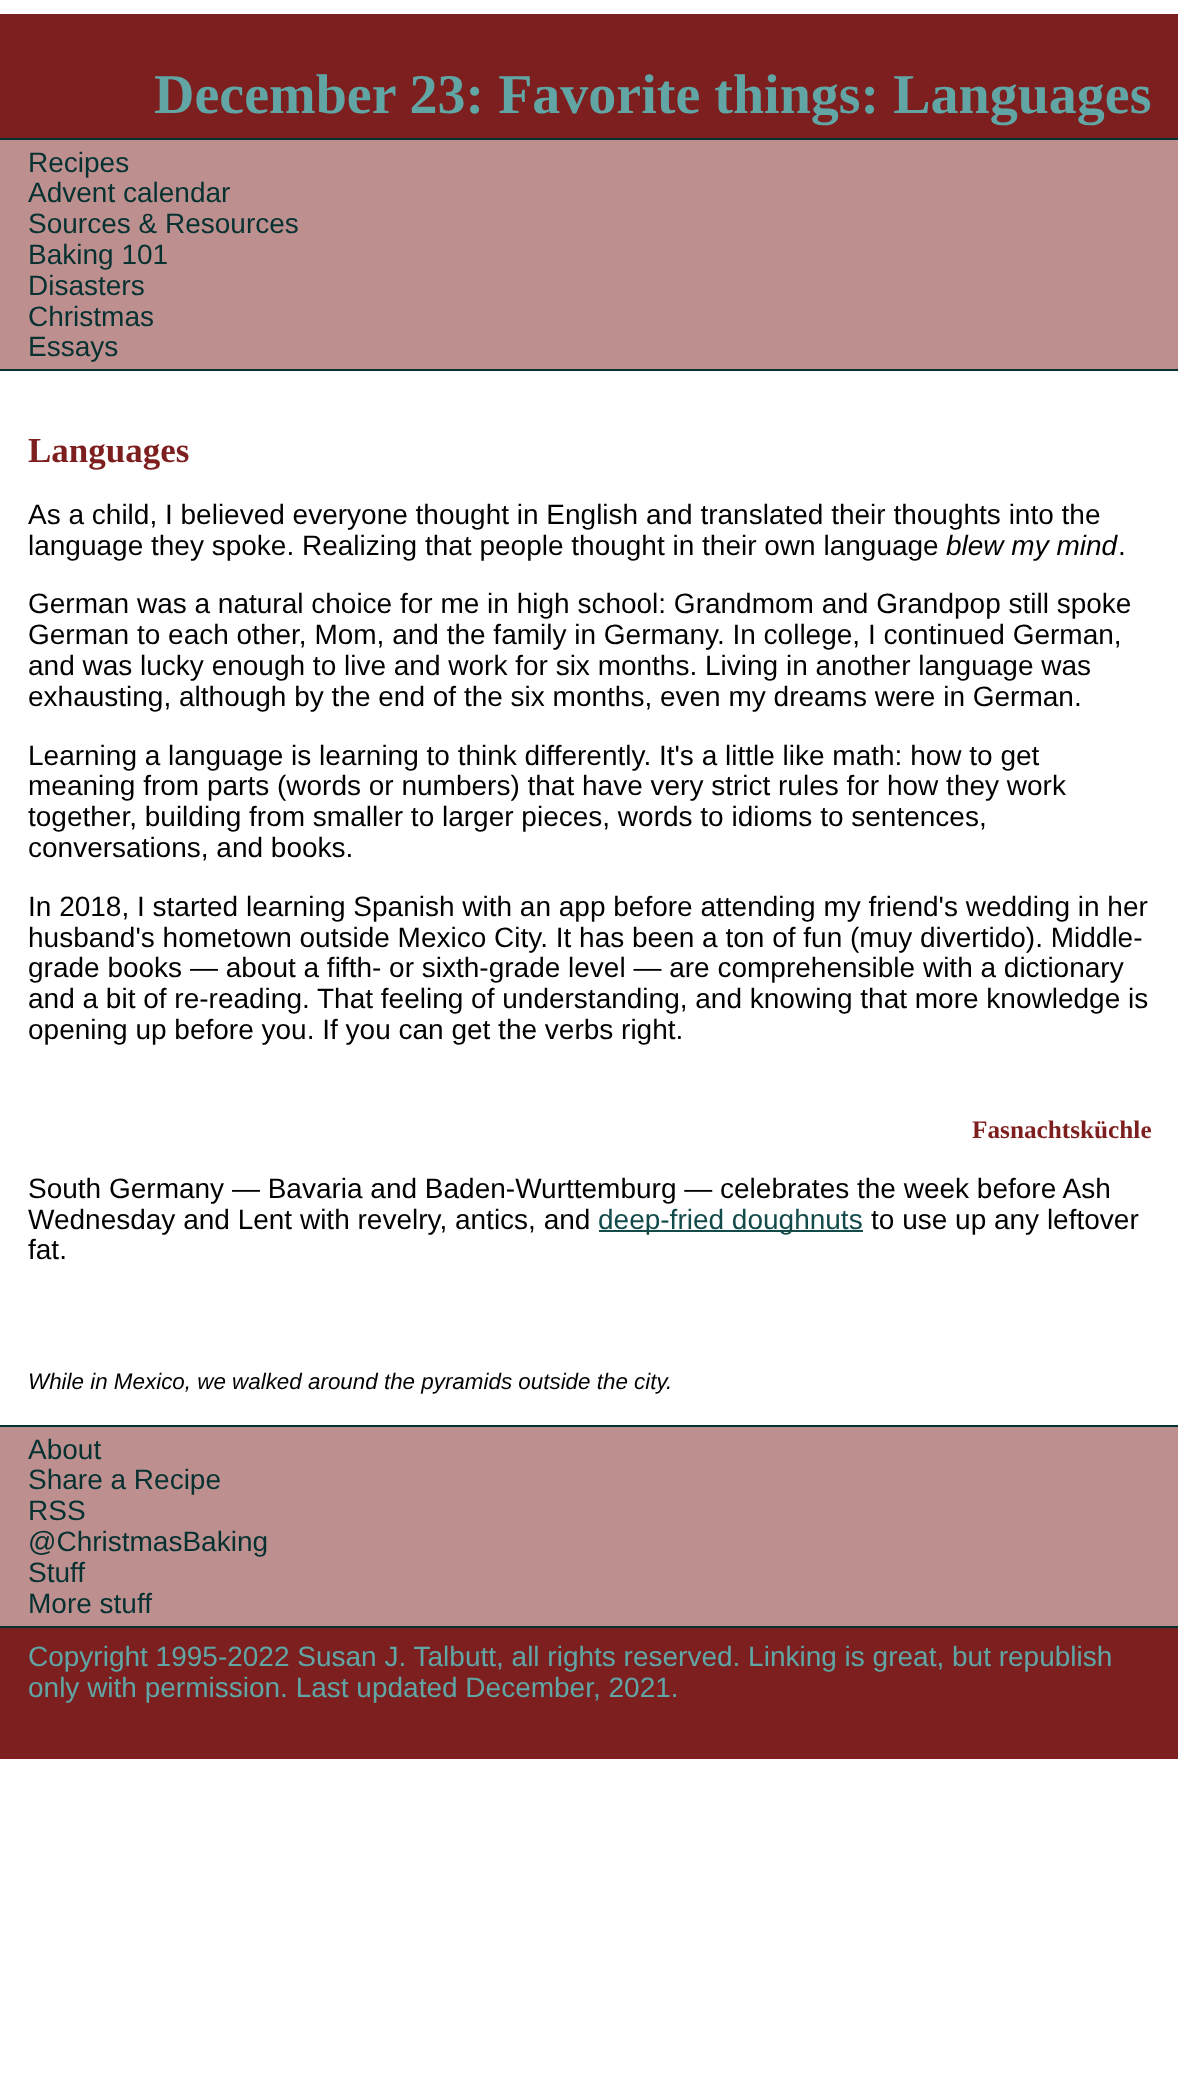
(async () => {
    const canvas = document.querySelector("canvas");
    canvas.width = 1178;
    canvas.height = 2089;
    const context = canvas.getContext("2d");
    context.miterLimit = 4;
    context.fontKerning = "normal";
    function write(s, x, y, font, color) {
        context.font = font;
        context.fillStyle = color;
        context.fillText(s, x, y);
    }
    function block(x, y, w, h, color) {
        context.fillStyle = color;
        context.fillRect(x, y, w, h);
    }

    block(0, 0, 1178, 2089, "rgb(255, 255, 255)");
    block(0, 14, 1178, 124, "rgb(125, 31, 31)");
    write("December 23: Favorite things: Languages", 154, 113, "bold 56px Liberation Serif", "rgb(97, 165, 165)");
    block(0, 140, 1178, 229, "rgb(190, 143, 143)");
    block(0, 138, 1178, 2, "rgb(6, 49, 49)");
    block(0, 369, 1178, 2, "rgb(6, 49, 49)");
    write("Recipes", 28, 172, "28px Liberation Sans", "rgb(6, 49, 49)");
    write("Advent calendar", 28, 202, "28px Liberation Sans", "rgb(6, 49, 49)");
    write("Sources & Resources", 28, 233, "28px Liberation Sans", "rgb(6, 49, 49)");
    write("Baking 101", 28, 264, "28px Liberation Sans", "rgb(6, 49, 49)");
    write("Disasters", 28, 295, "28px Liberation Sans", "rgb(6, 49, 49)");
    write("Christmas", 28, 326, "28px Liberation Sans", "rgb(6, 49, 49)");
    write("Essays", 28, 356, "28px Liberation Sans", "rgb(6, 49, 49)");
    write("Languages", 28, 462, "bold 35px Liberation Serif", "rgb(125, 31, 31)");
    write("As a child, I believed everyone thought in English and translated their thoughts into the", 28, 524, "28px Liberation Sans", "rgb(0, 0, 0)");
    write("language they spoke. Realizing that people thought in their own language", 28, 555, "28px Liberation Sans", "rgb(0, 0, 0)");
    write("blew my mind", 946, 555, "italic 28px Liberation Sans", "rgb(0, 0, 0)");
    write(".", 1118, 555, "28px Liberation Sans", "rgb(0, 0, 0)");
    write("German was a natural choice for me in high school: Grandmom and Grandpop still spoke", 28, 613, "28px Liberation Sans", "rgb(0, 0, 0)");
    write("German to each other, Mom, and the family in Germany. In college, I continued German,", 28, 644, "28px Liberation Sans", "rgb(0, 0, 0)");
    write("and was lucky enough to live and work for six months. Living in another language was", 28, 675, "28px Liberation Sans", "rgb(0, 0, 0)");
    write("exhausting, although by the end of the six months, even my dreams were in German.", 28, 706, "28px Liberation Sans", "rgb(0, 0, 0)");
    write("Learning a language is learning to think differently. It's a little like math: how to get", 28, 765, "28px Liberation Sans", "rgb(0, 0, 0)");
    write("meaning from parts (words or numbers) that have very strict rules for how they work", 28, 795, "28px Liberation Sans", "rgb(0, 0, 0)");
    write("together, building from smaller to larger pieces, words to idioms to sentences,", 28, 826, "28px Liberation Sans", "rgb(0, 0, 0)");
    write("conversations, and books.", 28, 857, "28px Liberation Sans", "rgb(0, 0, 0)");
    write("In 2018, I started learning Spanish with an app before attending my friend's wedding in her", 28, 916, "28px Liberation Sans", "rgb(0, 0, 0)");
    write("husband's hometown outside Mexico City. It has been a ton of fun (muy divertido). Middle-", 28, 947, "28px Liberation Sans", "rgb(0, 0, 0)");
    write("grade books — about a fifth- or sixth-grade level — are comprehensible with a dictionary", 28, 977, "28px Liberation Sans", "rgb(0, 0, 0)");
    write("and a bit of re-reading. That feeling of understanding, and knowing that more knowledge is", 28, 1008, "28px Liberation Sans", "rgb(0, 0, 0)");
    write("opening up before you. If you can get the verbs right.", 28, 1039, "28px Liberation Sans", "rgb(0, 0, 0)");
    write("Fasnachtsküchle", 972, 1138, "bold 25.25px Liberation Serif", "rgb(125, 31, 31)");
    write("South Germany — Bavaria and Baden-Wurttemburg — celebrates the week before Ash", 28, 1198, "28px Liberation Sans", "rgb(0, 0, 0)");
    write("Wednesday and Lent with revelry, antics, and", 28, 1229, "28px Liberation Sans", "rgb(0, 0, 0)");
    block(599, 1230, 264, 2, "rgb(19, 75, 75)");
    write("deep-fried doughnuts", 598, 1229, "28px Liberation Sans", "rgb(19, 75, 75)");
    write("to use up any leftover", 871, 1229, "28px Liberation Sans", "rgb(0, 0, 0)");
    write("fat.", 28, 1259, "28px Liberation Sans", "rgb(0, 0, 0)");
    write("While in Mexico, we walked around the pyramids outside the city.", 28, 1389, "italic 22.4px Liberation Sans", "rgb(0, 0, 0)");
    block(0, 1628, 1178, 131, "rgb(125, 31, 31)");
    block(0, 1427, 1178, 199, "rgb(190, 143, 143)");
    block(0, 1425, 1178, 2, "rgb(6, 49, 49)");
    block(0, 1626, 1178, 2, "rgb(6, 49, 49)");
    write("About", 28, 1459, "28px Liberation Sans", "rgb(6, 49, 49)");
    write("Share a Recipe", 28, 1489, "28px Liberation Sans", "rgb(6, 49, 49)");
    write("RSS", 28, 1520, "28px Liberation Sans", "rgb(6, 49, 49)");
    write("@ChristmasBaking", 28, 1551, "28px Liberation Sans", "rgb(6, 49, 49)");
    write("Stuff", 28, 1582, "28px Liberation Sans", "rgb(6, 49, 49)");
    write("More stuff", 28, 1613, "28px Liberation Sans", "rgb(6, 49, 49)");
    write("Copyright 1995-2022 Susan J. Talbutt, all rights reserved. Linking is great, but republish", 28, 1666, "28px Liberation Sans", "rgb(97, 165, 165)");
    write("only with permission. Last updated December, 2021.", 28, 1697, "28px Liberation Sans", "rgb(97, 165, 165)");
})();
